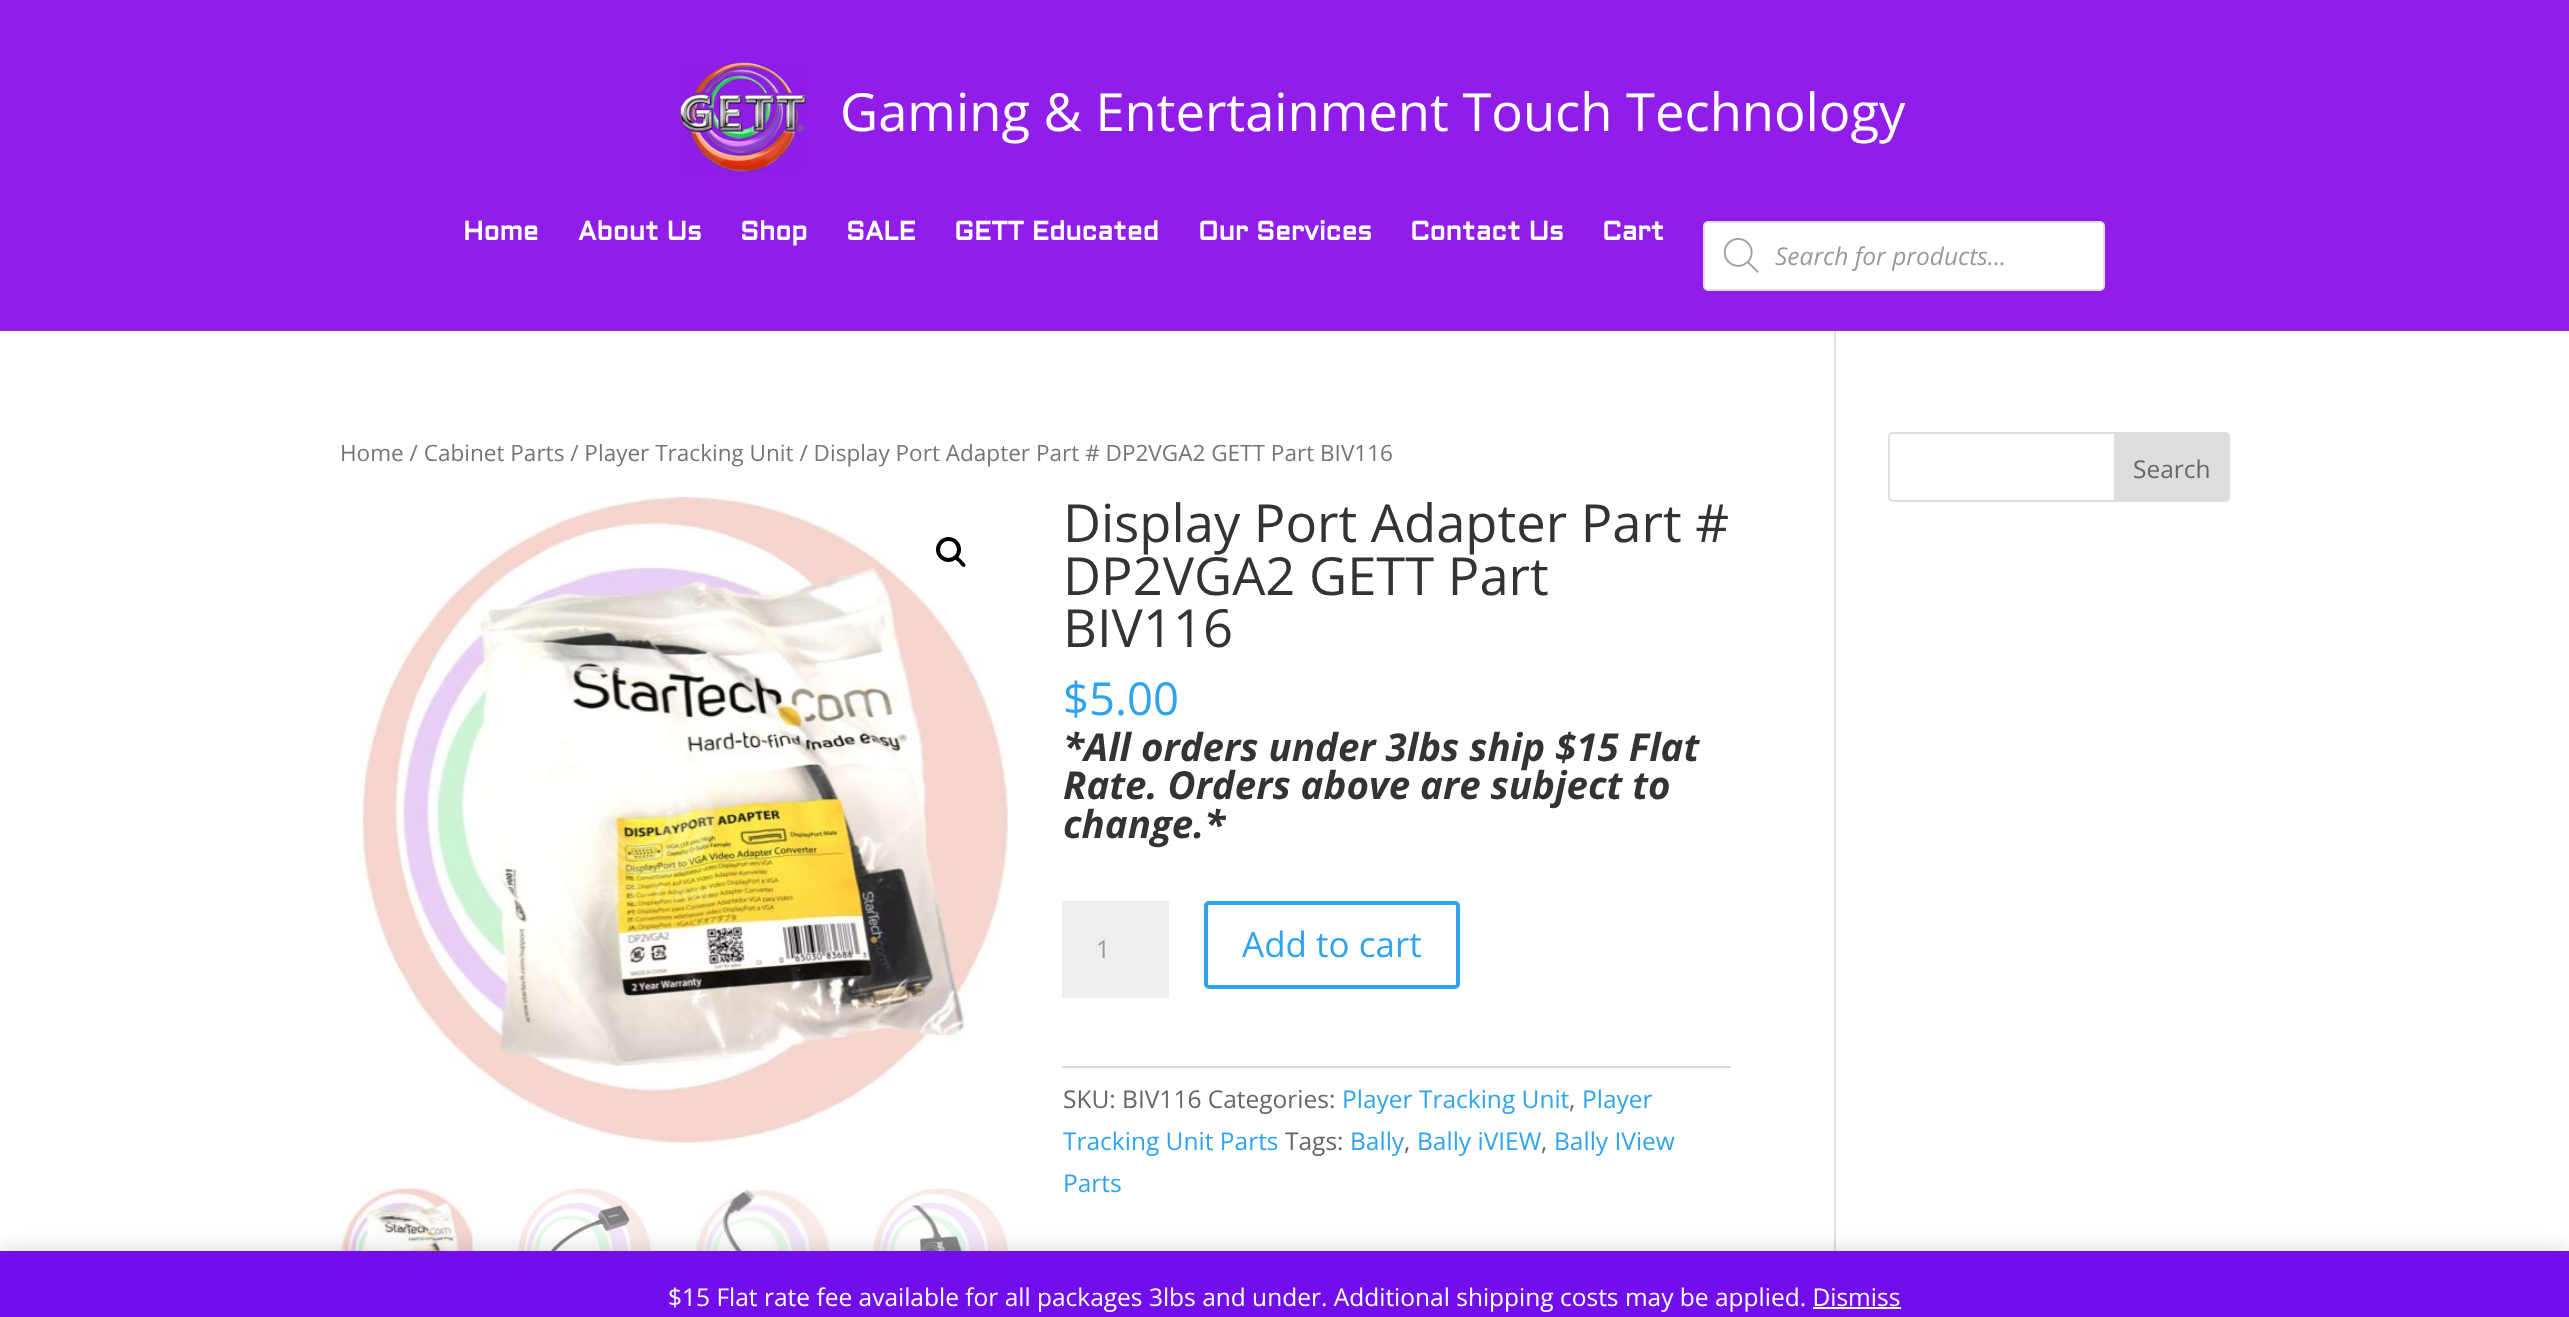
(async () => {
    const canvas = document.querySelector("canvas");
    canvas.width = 2569;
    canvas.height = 1317;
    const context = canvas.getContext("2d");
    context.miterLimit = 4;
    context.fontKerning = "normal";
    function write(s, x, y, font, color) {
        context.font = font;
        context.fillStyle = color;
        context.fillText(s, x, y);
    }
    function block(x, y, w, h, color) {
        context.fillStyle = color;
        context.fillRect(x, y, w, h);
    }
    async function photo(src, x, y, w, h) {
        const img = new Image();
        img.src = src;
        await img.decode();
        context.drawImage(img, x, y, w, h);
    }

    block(0, 0, 2569, 1317, "rgb(255, 255, 255)");
    block(0, 0, 2569, 331, "rgb(144, 30, 232)");
    await photo("media/1.png", 679, 62, 127, 110);
    write("Gaming & Entertainment Touch Technology", 840, 131, "52.5px Open Sans", "rgb(255, 255, 255)");
    write("Home", 463, 240, "bold 26.25px Aldrich", "rgb(255, 255, 255)");
    write("About Us", 578, 240, "bold 26.25px Aldrich", "rgb(255, 255, 255)");
    write("Shop", 740, 240, "bold 26.25px Aldrich", "rgb(255, 255, 255)");
    write("SALE", 846, 240, "bold 26.25px Aldrich", "rgb(255, 255, 255)");
    write("GETT Educated", 954, 240, "bold 26.25px Aldrich", "rgb(255, 255, 255)");
    write("Our Services", 1198, 240, "bold 26.25px Aldrich", "rgb(255, 255, 255)");
    write("Contact Us", 1410, 240, "bold 26.25px Aldrich", "rgb(255, 255, 255)");
    write("Cart", 1602, 240, "bold 26.25px Aldrich", "rgb(255, 255, 255)");
    context.beginPath();
    context.roundRect(1704, 222, 400, 68, 4);
    context.fill();
    context.strokeStyle = "rgb(221, 221, 221)";
    context.lineWidth = 2;
    context.stroke();
    await photo("media/2.png", 1724, 238, 35, 35);
    write("Search for products...", 1775, 265, "italic 24.5px Open Sans", "rgb(153, 153, 153)");
    block(1834, 331, 2, 920, "rgb(226, 226, 226)");
    write("Home / Cabinet Parts / Player Tracking Unit / Display Port Adapter Part # DP2VGA2 GETT Part BIV116", 340, 461, "22.55px Open Sans", "rgb(118, 118, 118)");
    await photo("media/4.png", 1007, 812, 1, 41);
    await photo("media/3.png", 357, 497, 651, 646);
    context.beginPath();
    context.arc(948.5, 549.5, 10.5, 0, Math.PI * 2);
    context.strokeStyle = "rgb(0, 0, 0)";
    context.lineWidth = 4;
    context.stroke();
    context.fillStyle = "rgb(0, 0, 0)";
    context.beginPath();
    context.moveTo(955, 556.5);
    context.bezierCurveTo(957, 554.5, 960.5, 559, 961.5, 560);
    context.bezierCurveTo(962.5, 561.5, 967, 564.5, 965, 566.5);
    context.bezierCurveTo(963, 568.5, 960, 564, 959, 562.5);
    context.bezierCurveTo(958, 561.5, 953, 558.5, 955, 556.5);
    context.closePath();
    context.fill();
    await photo("media/5.png", 340, 1188, 133, 63);
    await photo("media/6.png", 518, 1188, 133, 63);
    await photo("media/7.png", 696, 1188, 134, 63);
    await photo("media/8.png", 873, 1188, 135, 63);
    write("Display Port Adapter Part #", 1063, 542, "52.5px Open Sans", "rgb(51, 51, 51)");
    write("DP2VGA2 GETT Part", 1063, 595, "52.5px Open Sans", "rgb(51, 51, 51)");
    write("BIV116", 1063, 647, "52.5px Open Sans", "rgb(51, 51, 51)");
    write("$5.00", 1063, 715, "45.5px Open Sans", "rgb(46, 163, 242)");
    write("*All orders under 3lbs ship $15 Flat", 1063, 761, "italic bold 38.5px Open Sans", "rgb(51, 51, 51)");
    write("Rate. Orders above are subject to", 1063, 799, "italic bold 38.5px Open Sans", "rgb(51, 51, 51)");
    write("change.*", 1063, 838, "italic bold 38.5px Open Sans", "rgb(51, 51, 51)");
    block(1062, 901, 107, 97, "rgb(238, 238, 238)");
    write("1", 1096, 958, "24.5px Open Sans", "rgb(153, 153, 153)");
    context.beginPath();
    context.roundRect(1206, 903, 252, 84, 3);
    context.strokeStyle = "rgb(46, 163, 242)";
    context.stroke();
    write("Add to cart", 1242, 957, "35px Open Sans", "rgb(46, 163, 242)");
    block(1062, 1066, 669, 2, "rgb(218, 218, 218)");
    write("SKU: BIV116 Categories:", 1063, 1108, "24.5px Open Sans", "rgb(102, 102, 102)");
    write("Player Tracking Unit", 1342, 1108, "24.5px Open Sans", "rgb(46, 163, 242)");
    write(",", 1569, 1108, "24.5px Open Sans", "rgb(102, 102, 102)");
    write("Player", 1582, 1108, "24.5px Open Sans", "rgb(46, 163, 242)");
    write("Tracking Unit Parts", 1063, 1150, "24.5px Open Sans", "rgb(46, 163, 242)");
    write("Tags:", 1285, 1150, "24.5px Open Sans", "rgb(102, 102, 102)");
    write("Bally", 1350, 1150, "24.5px Open Sans", "rgb(46, 163, 242)");
    write(",", 1404, 1150, "24.5px Open Sans", "rgb(102, 102, 102)");
    write("Bally iVIEW", 1417, 1150, "24.5px Open Sans", "rgb(46, 163, 242)");
    write(",", 1541, 1150, "24.5px Open Sans", "rgb(102, 102, 102)");
    write("Bally IView", 1554, 1150, "24.5px Open Sans", "rgb(46, 163, 242)");
    write("Parts", 1063, 1192, "24.5px Open Sans", "rgb(46, 163, 242)");
    context.beginPath();
    context.roundRect(1889, 433, 340, 68, 4);
    context.strokeStyle = "rgb(221, 221, 221)";
    context.lineWidth = 2;
    context.stroke();
    context.fillStyle = "rgb(221, 221, 221)";
    context.beginPath();
    context.roundRect(2115, 433, 114, 68, [0, 4, 4, 0]);
    context.fill();
    context.stroke();
    write("Search", 2133, 478, "24.5px Open Sans", "rgb(102, 102, 102)");
    context.fillStyle = "rgba(0, 0, 0, 0.2)";
    context.filter = "blur(12px)";
    context.beginPath();
    context.rect(0, 1253, 2569, 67);
    context.fill();
    context.filter = "none";
    block(0, 1251, 2569, 66, "rgb(114, 14, 236)");
    write("$15 Flat rate fee available for all packages 3lbs and under. Additional shipping costs may be applied. Dismiss", 668, 1306, "24.5px Open Sans", "rgb(255, 255, 255)");
    block(1813, 1307, 88, 2, "rgb(252, 251, 254)");
})();
